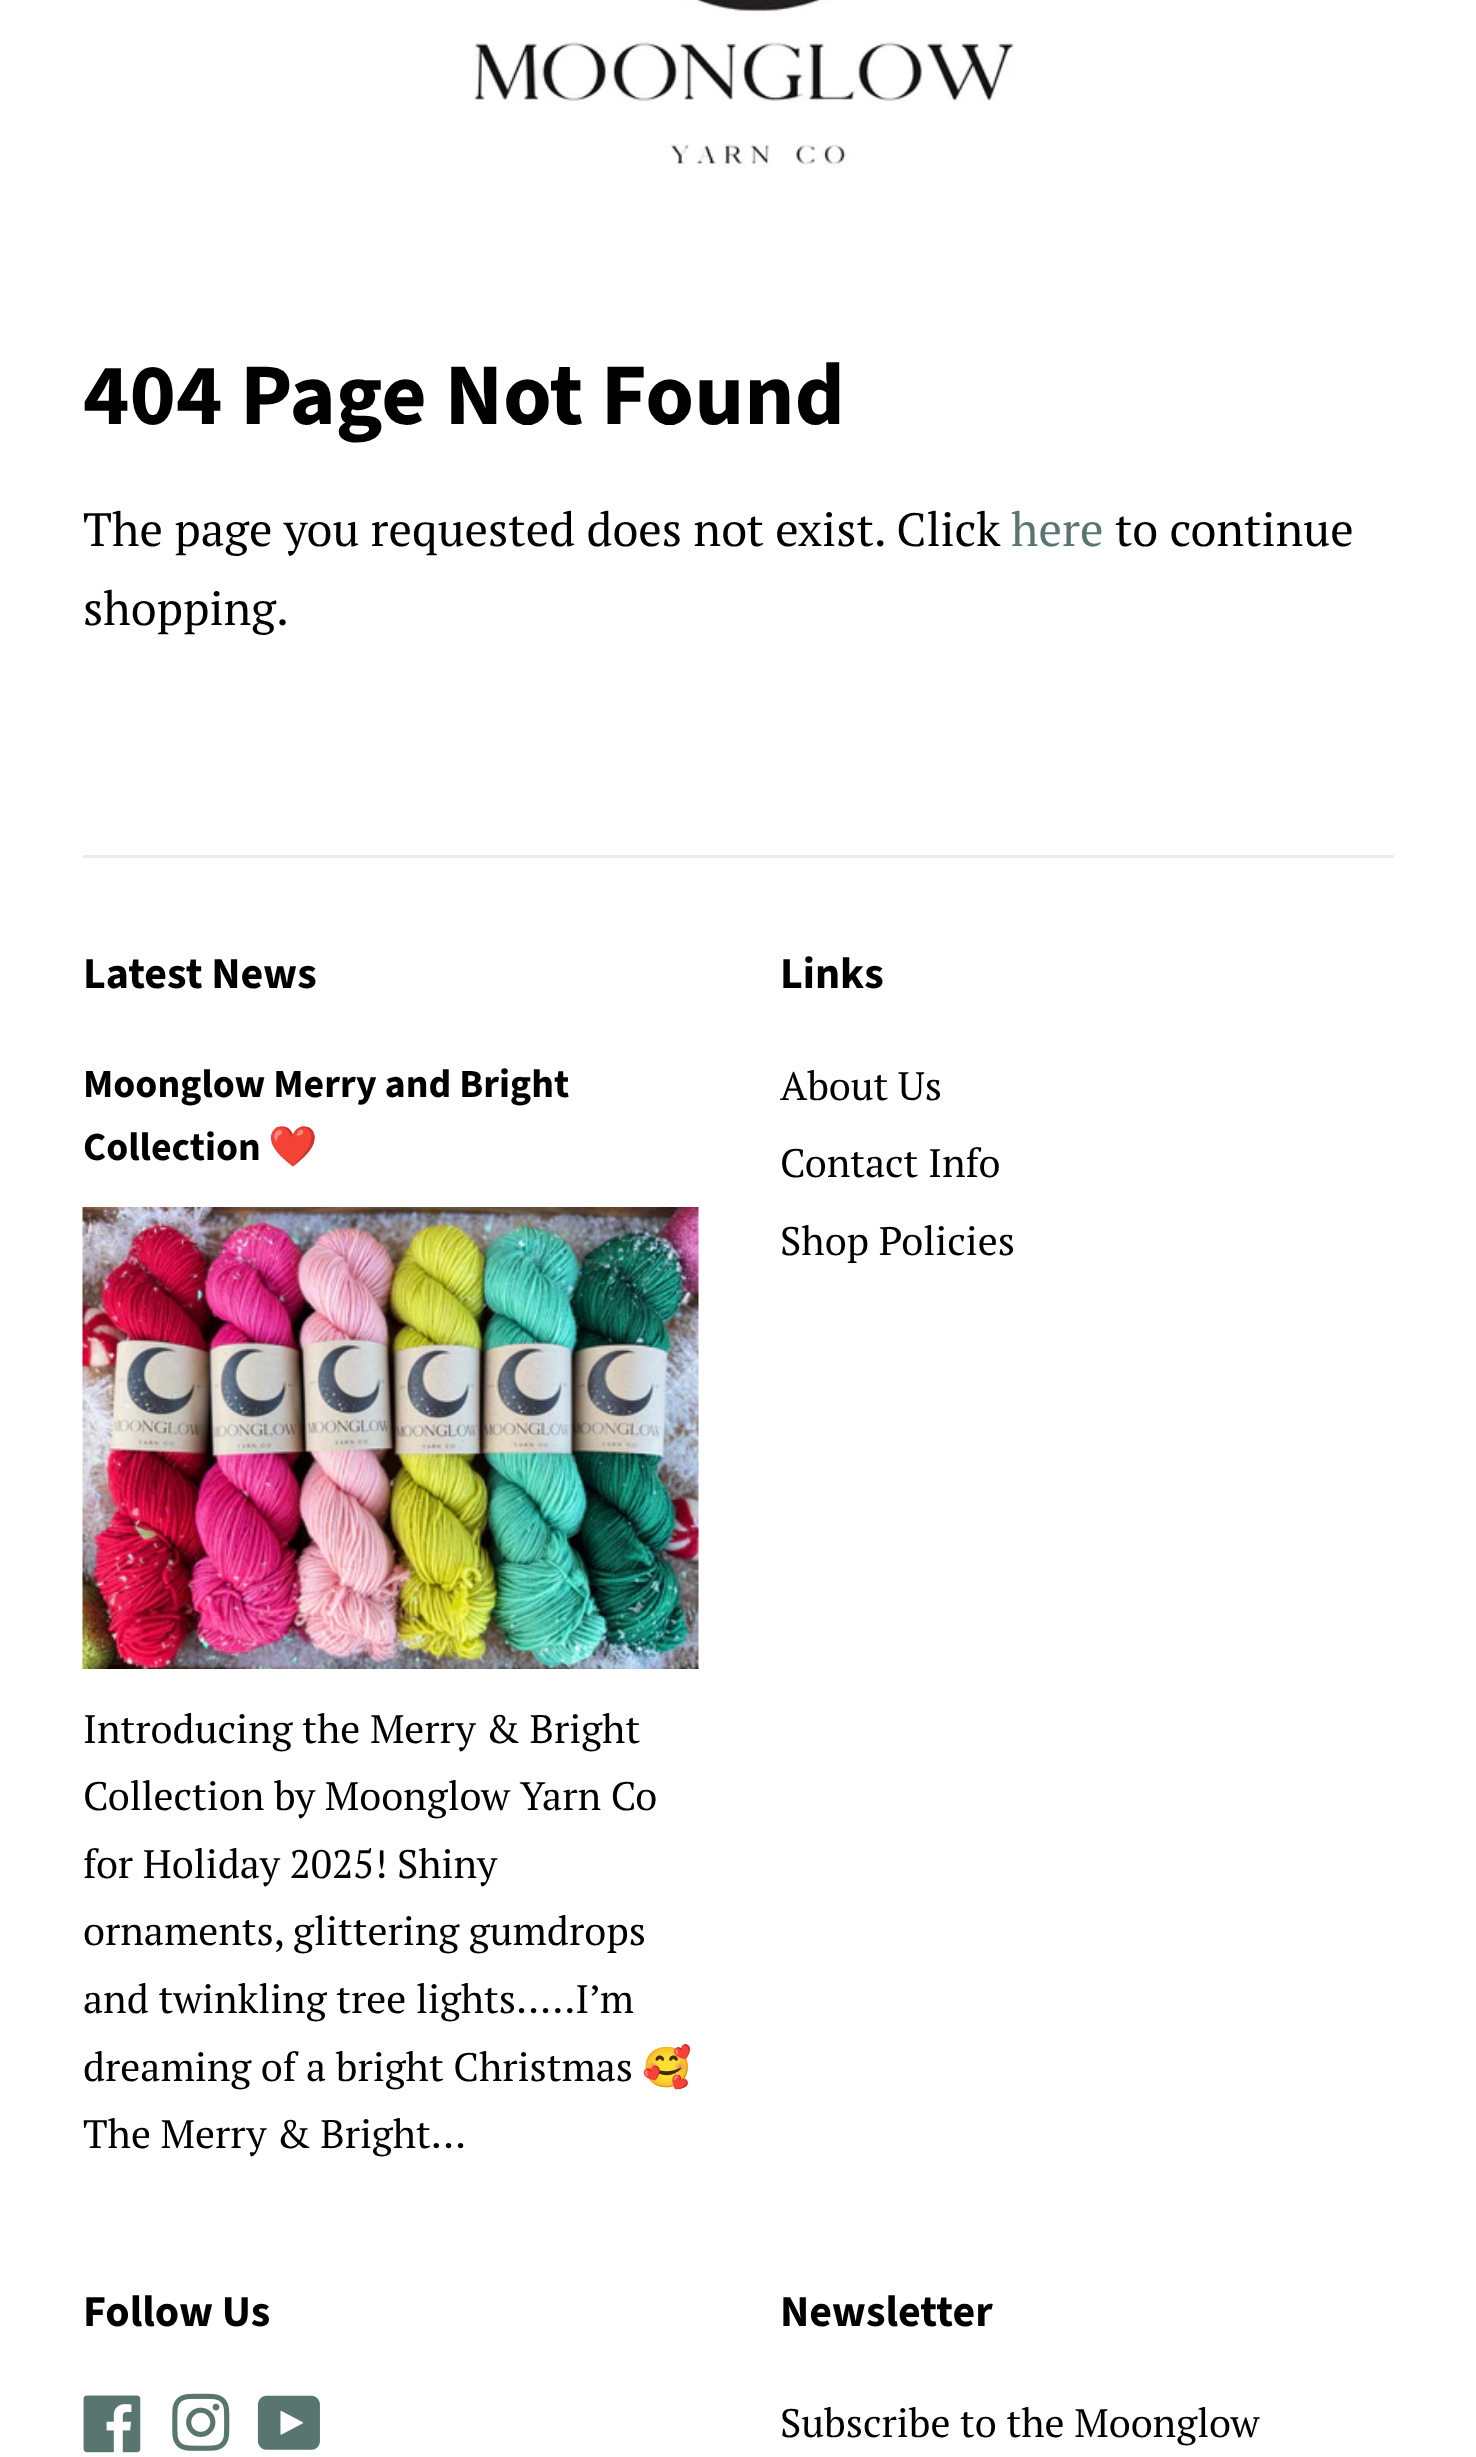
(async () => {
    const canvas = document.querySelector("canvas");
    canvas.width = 1476;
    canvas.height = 2457;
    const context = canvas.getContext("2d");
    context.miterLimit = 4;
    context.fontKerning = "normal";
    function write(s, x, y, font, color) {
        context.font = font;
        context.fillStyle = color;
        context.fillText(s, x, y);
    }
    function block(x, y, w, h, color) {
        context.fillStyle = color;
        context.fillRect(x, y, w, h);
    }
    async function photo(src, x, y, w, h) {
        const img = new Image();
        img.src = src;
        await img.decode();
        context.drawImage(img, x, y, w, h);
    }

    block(0, 0, 1476, 2457, "rgb(255, 255, 255)");
    await photo("media/1.png", 474, 0, 540, 168);
    write("404 Page Not Found", 83, 424, "bold 88px Source Sans Pro", "rgb(0, 0, 0)");
    write("The page you requested does not exist. Click", 83, 546, "46.75px PT Serif", "rgb(0, 0, 0)");
    write("here", 1011, 546, "46.75px PT Serif", "rgb(89, 117, 111)");
    write("to continue", 1115, 546, "46.75px PT Serif", "rgb(0, 0, 0)");
    write("shopping.", 83, 625, "46.75px PT Serif", "rgb(0, 0, 0)");
    block(83, 855, 1311, 3, "rgb(235, 235, 235)");
    write("Latest News", 83, 988, "bold 44px Source Sans Pro", "rgb(0, 0, 0)");
    write("Moonglow Merry and Bright", 83, 1097, "bold 39.75px Source Sans Pro", "rgb(0, 0, 0)");
    write("Collection", 83, 1160, "bold 39.75px Source Sans Pro", "rgb(0, 0, 0)");
    write("❤️", 268, 1160, "bold 39.75px Noto Color Emoji", "rgb(0, 0, 0)");
    await photo("media/2.png", 82, 1207, 617, 462);
    write("Introducing the Merry & Bright", 83, 1743, "39.75px PT Serif", "rgb(0, 0, 0)");
    write("Collection by Moonglow Yarn Co", 83, 1810, "39.75px PT Serif", "rgb(0, 0, 0)");
    write("for Holiday 2025! Shiny", 83, 1878, "39.75px PT Serif", "rgb(0, 0, 0)");
    write("ornaments, glittering gumdrops", 83, 1945, "39.75px PT Serif", "rgb(0, 0, 0)");
    write("and twinkling tree lights…..I’m", 83, 2013, "39.75px PT Serif", "rgb(0, 0, 0)");
    write("dreaming of a bright Christmas", 83, 2081, "39.75px PT Serif", "rgb(0, 0, 0)");
    write("🥰", 642, 2081, "39.75px Noto Color Emoji", "rgb(0, 0, 0)");
    write("The Merry & Bright...", 83, 2148, "39.75px PT Serif", "rgb(0, 0, 0)");
    write("Links", 780, 988, "bold 44px Source Sans Pro", "rgb(0, 0, 0)");
    write("About Us", 780, 1100, "39.75px PT Serif", "rgb(0, 0, 0)");
    write("Contact Info", 780, 1177, "39.75px PT Serif", "rgb(0, 0, 0)");
    write("Shop Policies", 780, 1255, "39.75px PT Serif", "rgb(0, 0, 0)");
    write("Follow Us", 83, 2326, "bold 44px Source Sans Pro", "rgb(0, 0, 0)");
    await photo("media/3.png", 83, 2395, 58, 58);
    await photo("media/4.png", 172, 2393, 58, 58);
    await photo("media/5.png", 257, 2395, 63, 55);
    write("Newsletter", 780, 2326, "bold 44px Source Sans Pro", "rgb(0, 0, 0)");
    write("Subscribe to the Moonglow", 780, 2437, "39.75px PT Serif", "rgb(0, 0, 0)");
})();
